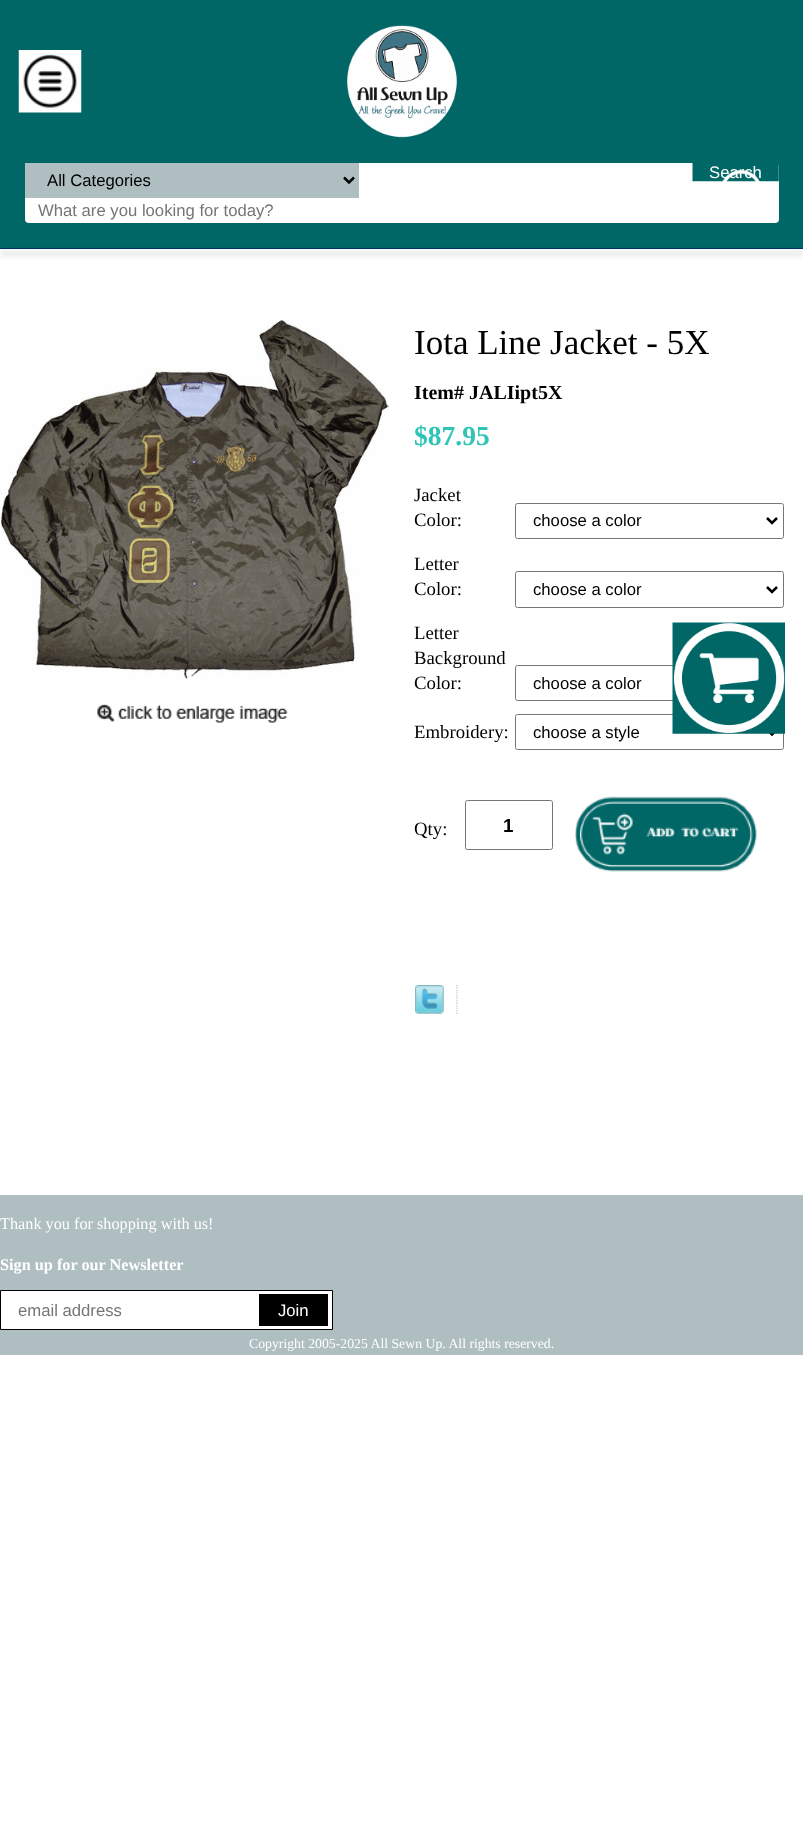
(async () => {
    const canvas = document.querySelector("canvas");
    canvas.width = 803;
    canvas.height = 1834;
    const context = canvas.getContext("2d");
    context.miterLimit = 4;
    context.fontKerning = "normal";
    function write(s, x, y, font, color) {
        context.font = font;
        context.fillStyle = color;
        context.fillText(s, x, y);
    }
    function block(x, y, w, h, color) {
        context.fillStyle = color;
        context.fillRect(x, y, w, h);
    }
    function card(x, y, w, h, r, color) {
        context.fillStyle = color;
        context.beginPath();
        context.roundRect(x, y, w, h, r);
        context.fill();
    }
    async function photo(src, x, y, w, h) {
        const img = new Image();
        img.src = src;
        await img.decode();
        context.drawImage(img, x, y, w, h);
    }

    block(0, 0, 803, 1834, "rgb(255, 255, 255)");
    block(0, 0, 803, 248, "rgb(0, 102, 102)");
    await photo("media/1.png", 18, 50, 64, 63);
    await photo("media/2.png", 347, 25, 110, 113);
    card(25, 163, 754, 60, 4, "rgb(255, 255, 255)");
    block(25, 163, 334, 35, "rgb(174, 190, 193)");
    context.beginPath();
    context.moveTo(344, 177.5);
    context.lineTo(349, 182.5);
    context.lineTo(354, 177.5);
    context.strokeStyle = "rgb(0, 0, 0)";
    context.lineWidth = 2.5;
    context.stroke();
    write("All Categories", 47, 186, "16.7px Liberation Sans", "rgb(0, 0, 0)");
    await photo("media/3.png", 692, 163, 87, 19);
    write("Search", 709, 178, "16.7px Liberation Sans", "rgb(255, 255, 255)");
    write("What are you looking for today?", 38, 216, "16.7px Liberation Sans", "rgb(117, 117, 117)");
    context.beginPath();
    context.roundRect(515.5, 665.5, 268, 35, 2);
    context.strokeStyle = "rgb(118, 118, 118)";
    context.lineWidth = 1;
    context.stroke();
    context.beginPath();
    context.roundRect(515.5, 714.5, 268, 35, 2);
    context.stroke();
    context.beginPath();
    context.moveTo(767, 729.5);
    context.lineTo(772, 734.5);
    context.lineTo(777, 729.5);
    context.strokeStyle = "rgb(0, 0, 0)";
    context.lineWidth = 2.5;
    context.stroke();
    await photo("media/4.png", 672, 622, 113, 112);
    context.fillStyle = "rgba(0, 0, 0, 0.48)";
    context.filter = "blur(3px)";
    context.beginPath();
    context.rect(0, 253, 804, 1);
    context.fill();
    context.filter = "none";
    block(0, 248, 803, 1, "rgb(0, 51, 102)");
    await photo("media/5.png", 1, 320, 388, 359);
    await photo("media/6.png", 97, 703, 191, 20);
    write("Iota Line Jacket - 5X", 414, 354, "35px Liberation Serif", "rgb(0, 0, 0)");
    write("Item# JALIipt5X", 414, 399, "bold 20px Liberation Serif", "rgb(0, 0, 0)");
    write("$87.95", 414, 445, "bold 27.5px Liberation Serif", "rgb(46, 196, 182)");
    write("Jacket", 414, 501, "18.75px Liberation Serif", "rgb(0, 0, 0)");
    write("Color:", 414, 526, "18.75px Liberation Serif", "rgb(0, 0, 0)");
    context.beginPath();
    context.roundRect(515.5, 503.5, 268, 35, 2);
    context.strokeStyle = "rgb(118, 118, 118)";
    context.lineWidth = 1;
    context.stroke();
    context.beginPath();
    context.moveTo(767, 518);
    context.lineTo(772, 523);
    context.lineTo(777, 518);
    context.strokeStyle = "rgb(0, 0, 0)";
    context.lineWidth = 2.5;
    context.stroke();
    write("choose a color", 533, 526, "16.7px Liberation Sans", "rgb(0, 0, 0)");
    write("Letter", 414, 570, "18.75px Liberation Serif", "rgb(0, 0, 0)");
    write("Color:", 414, 595, "18.75px Liberation Serif", "rgb(0, 0, 0)");
    context.beginPath();
    context.roundRect(515.5, 571.5, 268, 36, 2);
    context.strokeStyle = "rgb(118, 118, 118)";
    context.lineWidth = 1;
    context.stroke();
    context.beginPath();
    context.moveTo(767, 587);
    context.lineTo(772, 592);
    context.lineTo(777, 587);
    context.strokeStyle = "rgb(0, 0, 0)";
    context.lineWidth = 2.5;
    context.stroke();
    write("choose a color", 533, 595, "16.7px Liberation Sans", "rgb(0, 0, 0)");
    write("Letter", 414, 639, "18.75px Liberation Serif", "rgb(0, 0, 0)");
    write("Background", 414, 664, "18.75px Liberation Serif", "rgb(0, 0, 0)");
    write("Color:", 414, 689, "18.75px Liberation Serif", "rgb(0, 0, 0)");
    write("choose a color", 533, 689, "16.7px Liberation Sans", "rgb(0, 0, 0)");
    write("Embroidery:", 414, 738, "18.75px Liberation Serif", "rgb(0, 0, 0)");
    write("choose a style", 533, 738, "16.7px Liberation Sans", "rgb(0, 0, 0)");
    write("Qty:", 414, 835, "18.75px Liberation Serif", "rgb(0, 0, 0)");
    context.beginPath();
    context.roundRect(465.5, 800.5, 87, 49, 2);
    context.strokeStyle = "rgb(118, 118, 118)";
    context.lineWidth = 1;
    context.stroke();
    write("1", 503, 832, "bold 18.75px Liberation Sans", "rgb(0, 0, 0)");
    await photo("media/7.png", 575, 796, 182, 76);
    await photo("media/8.png", 415, 985, 29, 29);
    await photo("media/9.png", 456, 985, 2, 29);
    block(0, 1195, 803, 160, "rgb(174, 190, 193)");
    write("Thank you for shopping with us!", 0, 1229, "16.25px Liberation Serif", "rgb(255, 255, 255)");
    write("Sign up for our Newsletter", 0, 1270, "bold 16.25px Liberation Serif", "rgb(255, 255, 255)");
    context.beginPath();
    context.rect(0.5, 1290.5, 332, 39);
    context.fill();
    context.strokeStyle = "rgb(0, 0, 0)";
    context.stroke();
    write("email address", 18, 1316, "16.7px Liberation Sans", "rgb(117, 117, 117)");
    block(259, 1294, 69, 32, "rgb(0, 0, 0)");
    write("Join", 278, 1316, "16.7px Liberation Sans", "rgb(255, 255, 255)");
    write("Copyright 2005-2025 All Sewn Up. All rights reserved.", 249, 1348, "13.75px Liberation Serif", "rgb(255, 255, 255)");
})();
